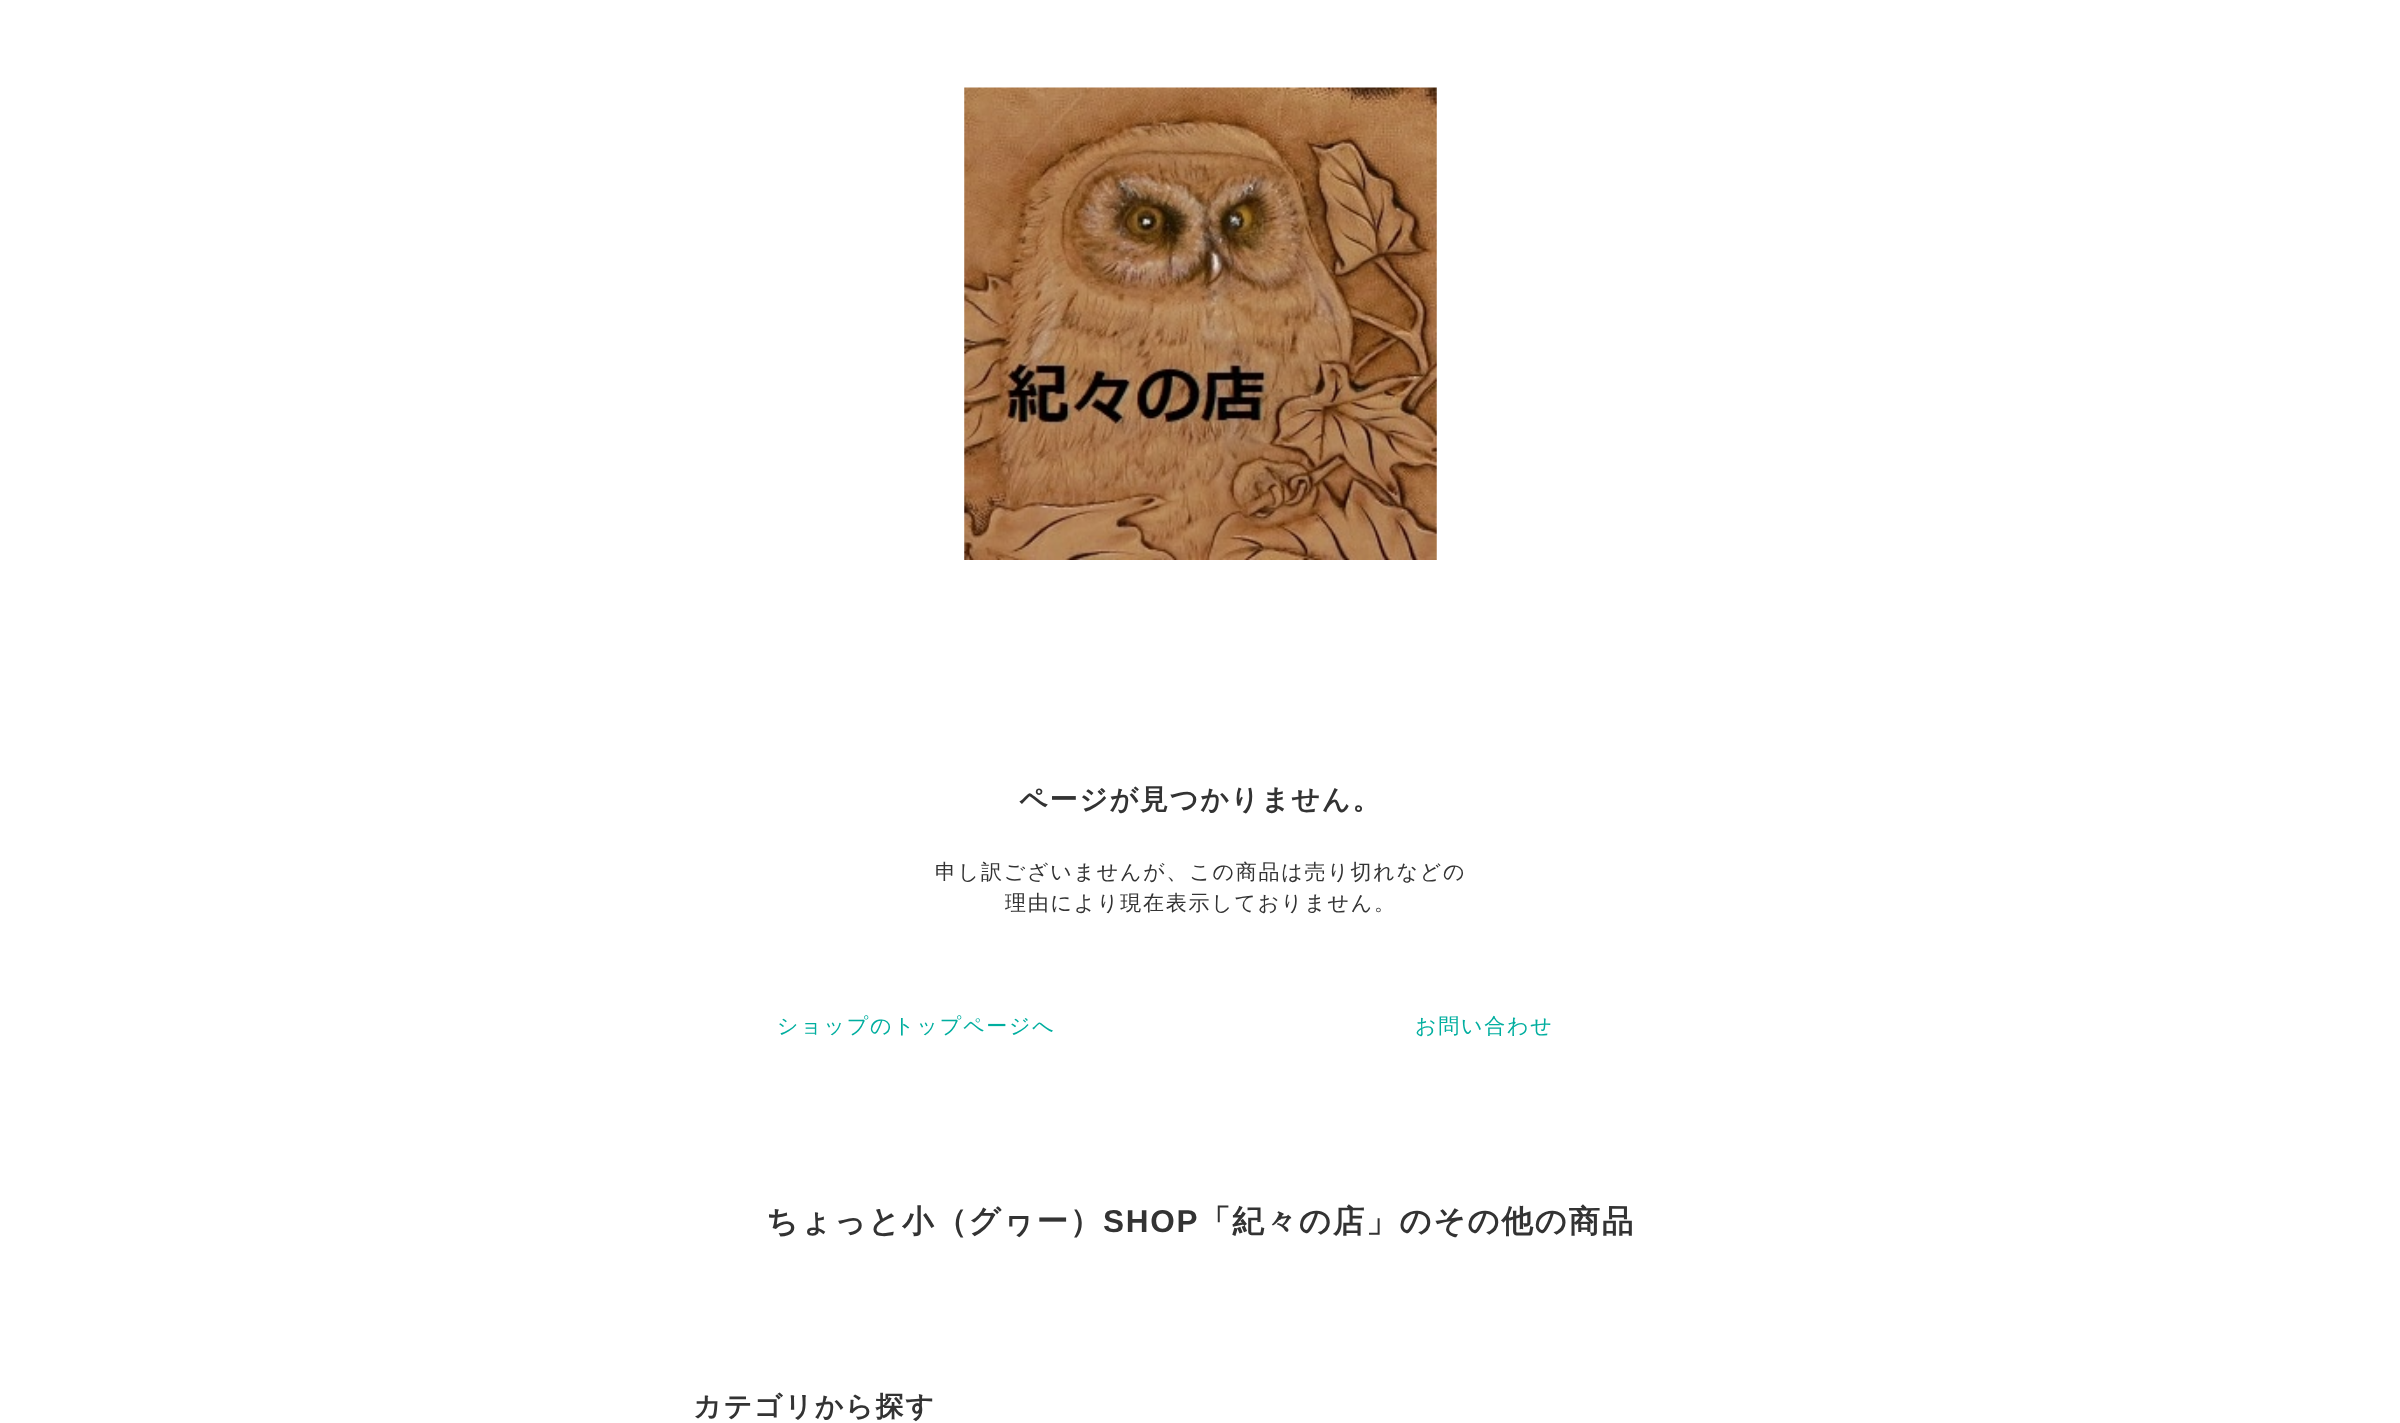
(async () => {
    const canvas = document.querySelector("canvas");
    canvas.width = 2400;
    canvas.height = 1423;
    const context = canvas.getContext("2d");
    context.miterLimit = 4;
    context.fontKerning = "normal";
    function write(s, x, y, font, color) {
        context.font = font;
        context.fillStyle = color;
        context.fillText(s, x, y);
    }
    function block(x, y, w, h, color) {
        context.fillStyle = color;
        context.fillRect(x, y, w, h);
    }
    async function photo(src, x, y, w, h) {
        const img = new Image();
        img.src = src;
        await img.decode();
        context.drawImage(img, x, y, w, h);
    }

    block(0, 0, 2400, 1423, "rgb(255, 255, 255)");
    await photo("media/1.png", 964, 87, 473, 473);
    context.letterSpacing = "1.75px";
    write("ページが見つかりません。", 1019, 809, "bold 28px WenQuanYi Zen Hei", "rgb(51, 51, 51)");
    write("申し訳ございませんが、この商品は売り切れなどの", 935, 879, "500 21px WenQuanYi Zen Hei", "rgb(51, 51, 51)");
    write("理由により現在表示しておりません。", 1005, 910, "500 21px WenQuanYi Zen Hei", "rgb(51, 51, 51)");
    write("ショップのトップページへ", 777, 1033, "500 21px WenQuanYi Zen Hei", "rgb(0, 174, 159)");
    write("お問い合わせ", 1415, 1033, "500 21px WenQuanYi Zen Hei", "rgb(0, 174, 159)");
    write("ちょっと小（グヮー）", 766, 1232, "bold 31.5px WenQuanYi Zen Hei", "rgb(51, 51, 51)");
    write("SHOP", 1103, 1232, "bold 31.5px Liberation Sans", "rgb(51, 51, 51)");
    write("「紀々の店」のその他の商品", 1199, 1232, "bold 31.5px WenQuanYi Zen Hei", "rgb(51, 51, 51)");
    write("カテゴリから探す", 693, 1416, "bold 28px WenQuanYi Zen Hei", "rgb(51, 51, 51)");
})();
